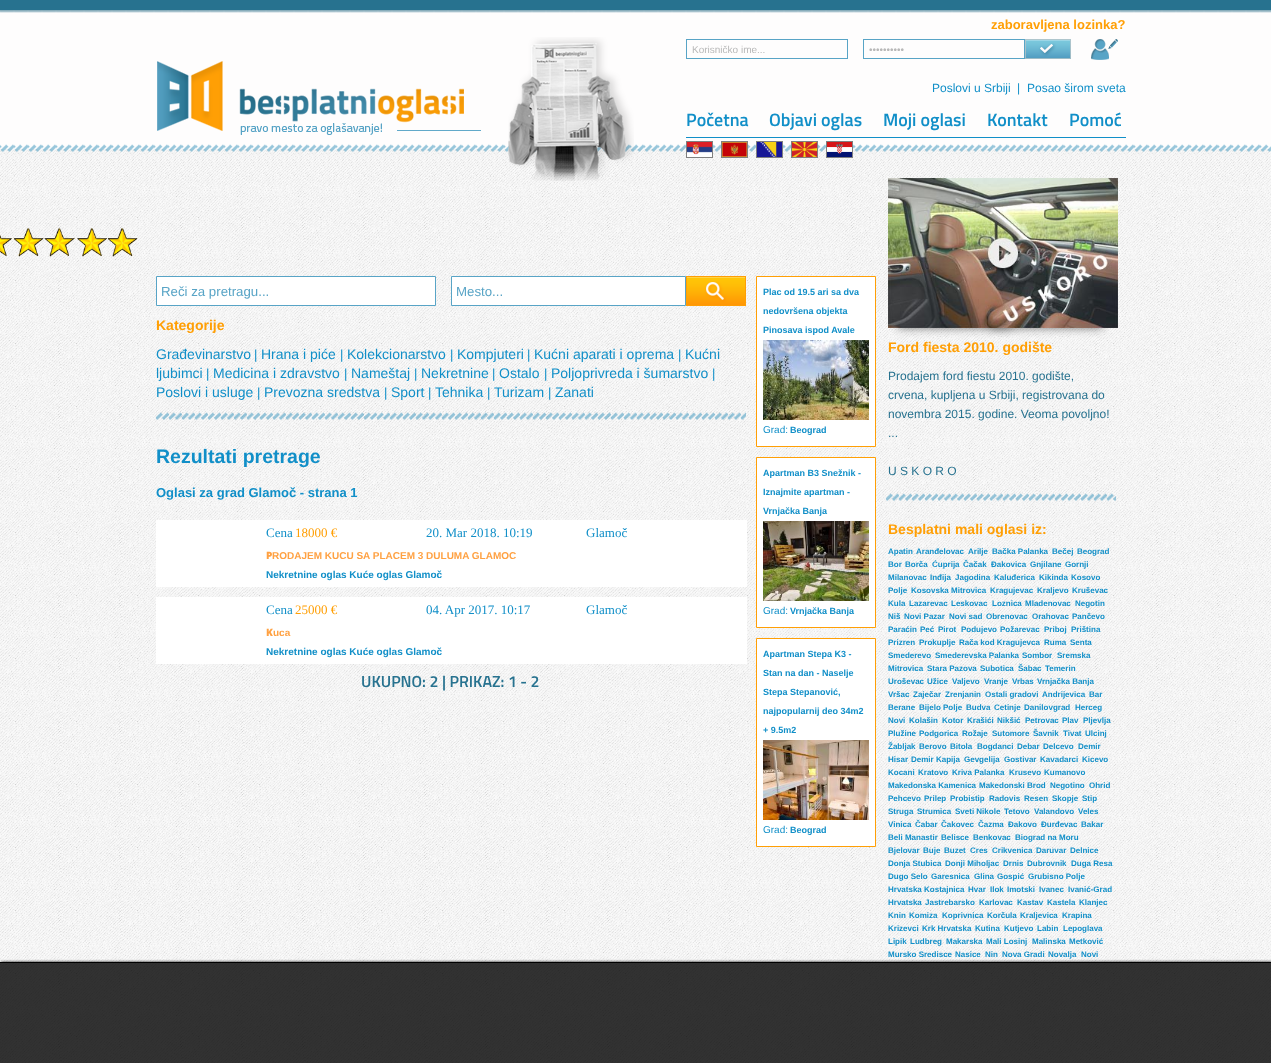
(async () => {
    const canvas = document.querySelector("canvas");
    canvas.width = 1271;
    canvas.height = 1063;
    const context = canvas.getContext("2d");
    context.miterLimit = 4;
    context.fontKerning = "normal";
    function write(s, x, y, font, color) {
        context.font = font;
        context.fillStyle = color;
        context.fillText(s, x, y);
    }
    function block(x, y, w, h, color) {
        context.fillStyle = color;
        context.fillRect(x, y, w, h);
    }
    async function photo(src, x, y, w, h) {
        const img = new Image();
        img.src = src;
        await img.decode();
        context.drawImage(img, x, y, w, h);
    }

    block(0, 0, 1271, 1063, "rgb(255, 255, 255)");
    await photo("media/1.png", 0, 176, 1271, 887);
    await photo("media/2.png", 0, 0, 1271, 176);
    write("zaboravljena lozinka?", 991, 29, "bold 13px Liberation Sans", "rgb(255, 159, 5)");
    await photo("media/3.png", 157, 61, 324, 74);
    await photo("media/4.png", 508, 37, 126, 144);
    context.strokeStyle = "rgb(88, 164, 198)";
    context.strokeRect(686.5, 39.5, 161, 19);
    write("Korisničko ime...", 692, 53, "10px Liberation Sans", "rgb(184, 184, 184)");
    context.strokeRect(863.5, 39.5, 161, 19);
    write("••••••••••", 869, 53, "10px Liberation Sans", "rgb(184, 184, 184)");
    await photo("media/5.png", 1025, 39, 46, 20);
    await photo("media/6.png", 1091, 39, 27, 21);
    write("Poslovi u Srbiji", 932, 92, "12px Liberation Sans", "rgb(17, 143, 200)");
    write("|", 1017, 92, "12px Liberation Sans", "rgb(17, 143, 200)");
    write("Posao širom sveta", 1027, 92, "12px Liberation Sans", "rgb(17, 143, 200)");
    block(686, 137, 440, 1, "rgb(17, 143, 200)");
    write("Početna", 686, 126, "600 18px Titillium", "rgb(17, 143, 200)");
    write("Objavi oglas", 769, 126, "600 18px Titillium", "rgb(17, 143, 200)");
    write("Moji oglasi", 883, 126, "600 18px Titillium", "rgb(17, 143, 200)");
    write("Kontakt", 987, 126, "600 18px Titillium", "rgb(17, 143, 200)");
    write("Pomoć", 1069, 126, "600 18px Titillium", "rgb(17, 143, 200)");
    context.strokeStyle = "rgb(128, 128, 128)";
    context.strokeRect(686.5, 141.5, 26, 16);
    await photo("media/7.png", 687, 142, 25, 15);
    context.strokeRect(721.5, 141.5, 26, 16);
    await photo("media/8.png", 722, 142, 25, 15);
    context.strokeRect(756.5, 141.5, 26, 16);
    await photo("media/9.png", 757, 142, 25, 15);
    context.strokeRect(791.5, 141.5, 26, 16);
    await photo("media/10.png", 792, 142, 25, 15);
    context.strokeRect(826.5, 141.5, 26, 16);
    await photo("media/11.png", 827, 142, 25, 15);
    await photo("media/12.png", 0, 228, 138, 29);
    context.fillStyle = "rgb(255, 255, 255)";
    context.beginPath();
    context.rect(156.5, 276.5, 279, 29);
    context.fill();
    context.strokeStyle = "rgb(88, 164, 198)";
    context.stroke();
    write("Reči za pretragu...", 161, 296, "13.25px Liberation Sans", "rgb(88, 164, 198)");
    context.fillStyle = "rgb(255, 255, 255)";
    context.beginPath();
    context.rect(451.5, 276.5, 234, 29);
    context.fill();
    context.stroke();
    write("Mesto...", 456, 296, "13.25px Liberation Sans", "rgb(88, 164, 198)");
    await photo("media/13.png", 686, 276, 60, 30);
    write("Kategorije", 156, 330, "bold 14px Liberation Sans", "rgb(255, 159, 5)");
    write("Građevinarstvo", 156, 359, "14px Liberation Sans", "rgb(17, 143, 200)");
    write("|", 254, 359, "13px Liberation Sans", "rgb(17, 143, 200)");
    write("Hrana i piće", 261, 359, "14px Liberation Sans", "rgb(17, 143, 200)");
    write("|", 340, 359, "13px Liberation Sans", "rgb(17, 143, 200)");
    write("Kolekcionarstvo", 347, 359, "14px Liberation Sans", "rgb(17, 143, 200)");
    write("|", 450, 359, "13px Liberation Sans", "rgb(17, 143, 200)");
    write("Kompjuteri", 457, 359, "14px Liberation Sans", "rgb(17, 143, 200)");
    write("|", 527, 359, "13px Liberation Sans", "rgb(17, 143, 200)");
    write("Kućni aparati i oprema", 534, 359, "14px Liberation Sans", "rgb(17, 143, 200)");
    write("|", 678, 359, "13px Liberation Sans", "rgb(17, 143, 200)");
    write("Kućni", 685, 359, "14px Liberation Sans", "rgb(17, 143, 200)");
    write("ljubimci", 156, 378, "14px Liberation Sans", "rgb(17, 143, 200)");
    write("|", 206, 378, "13px Liberation Sans", "rgb(17, 143, 200)");
    write("Medicina i zdravstvo", 213, 378, "14px Liberation Sans", "rgb(17, 143, 200)");
    write("|", 344, 378, "13px Liberation Sans", "rgb(17, 143, 200)");
    write("Nameštaj", 351, 378, "14px Liberation Sans", "rgb(17, 143, 200)");
    write("|", 414, 378, "13px Liberation Sans", "rgb(17, 143, 200)");
    write("Nekretnine", 421, 378, "14px Liberation Sans", "rgb(17, 143, 200)");
    write("|", 492, 378, "13px Liberation Sans", "rgb(17, 143, 200)");
    write("Ostalo", 499, 378, "14px Liberation Sans", "rgb(17, 143, 200)");
    write("|", 544, 378, "13px Liberation Sans", "rgb(17, 143, 200)");
    write("Poljoprivreda i šumarstvo", 551, 378, "14px Liberation Sans", "rgb(17, 143, 200)");
    write("|", 712, 378, "13px Liberation Sans", "rgb(17, 143, 200)");
    write("Poslovi i usluge", 156, 397, "14px Liberation Sans", "rgb(17, 143, 200)");
    write("|", 257, 397, "13px Liberation Sans", "rgb(17, 143, 200)");
    write("Prevozna sredstva", 264, 397, "14px Liberation Sans", "rgb(17, 143, 200)");
    write("|", 384, 397, "13px Liberation Sans", "rgb(17, 143, 200)");
    write("Sport", 391, 397, "14px Liberation Sans", "rgb(17, 143, 200)");
    write("|", 428, 397, "13px Liberation Sans", "rgb(17, 143, 200)");
    write("Tehnika", 435, 397, "14px Liberation Sans", "rgb(17, 143, 200)");
    write("|", 487, 397, "13px Liberation Sans", "rgb(17, 143, 200)");
    write("Turizam", 494, 397, "14px Liberation Sans", "rgb(17, 143, 200)");
    write("|", 548, 397, "13px Liberation Sans", "rgb(17, 143, 200)");
    write("Zanati", 555, 397, "14px Liberation Sans", "rgb(17, 143, 200)");
    await photo("media/14.png", 156, 412, 590, 8);
    write("Rezultati pretrage", 156, 463, "bold 19.5px Liberation Sans", "rgb(17, 143, 200)");
    write("Oglasi za grad Glamoč - strana 1", 156, 497, "bold 13px Liberation Sans", "rgb(17, 143, 200)");
    block(156, 520, 591, 67, "rgb(255, 255, 255)");
    write("Cena", 266, 537, "13px Liberation Serif", "rgb(17, 143, 200)");
    write("18000 €", 295, 537, "13px Liberation Serif", "rgb(255, 159, 5)");
    write("20. Mar 2018. 10:19", 426, 537, "13px Liberation Serif", "rgb(17, 143, 200)");
    write("Glamoč", 586, 537, "13px Liberation Serif", "rgb(17, 143, 200)");
    write("P", 266, 559, "900 10px Noto Sans", "rgb(255, 161, 66)");
    write("RODAJEM KUCU SA PLACEM 3 DULUMA GLAMOC", 272, 559, "bold 10px Liberation Sans", "rgb(255, 161, 66)");
    write("Nekretnine oglas Kuće oglas Glamoč", 266, 578, "bold 10px Liberation Sans", "rgb(17, 143, 200)");
    block(156, 597, 591, 67, "rgb(255, 255, 255)");
    write("Cena", 266, 614, "13px Liberation Serif", "rgb(17, 143, 200)");
    write("25000 €", 295, 614, "13px Liberation Serif", "rgb(255, 159, 5)");
    write("04. Apr 2017. 10:17", 426, 614, "13px Liberation Serif", "rgb(17, 143, 200)");
    write("Glamoč", 586, 614, "13px Liberation Serif", "rgb(17, 143, 200)");
    write("K", 266, 636, "900 10px Noto Sans", "rgb(255, 161, 66)");
    write("uca", 273, 636, "bold 10px Liberation Sans", "rgb(255, 161, 66)");
    write("Nekretnine oglas Kuće oglas Glamoč", 266, 655, "bold 10px Liberation Sans", "rgb(17, 143, 200)");
    write("UKUPNO: 2 | PRIKAZ: 1 - 2", 361, 687, "600 16px Titillium", "rgb(39, 114, 143)");
    context.fillStyle = "rgb(255, 255, 255)";
    context.beginPath();
    context.rect(756.5, 276.5, 119, 170);
    context.fill();
    context.strokeStyle = "rgb(255, 159, 5)";
    context.stroke();
    write("Plac od 19.5 ari sa dva", 763, 295, "bold 9px Liberation Sans", "rgb(17, 143, 200)");
    write("nedovršena objekta", 763, 314, "bold 9px Liberation Sans", "rgb(17, 143, 200)");
    write("Pinosava ispod Avale", 763, 333, "bold 9px Liberation Sans", "rgb(17, 143, 200)");
    await photo("media/15.png", 763, 340, 106, 80);
    write("Grad:", 763, 433, "10px Liberation Sans", "rgb(17, 143, 200)");
    write("Beograd", 790, 433, "bold 9px Liberation Sans", "rgb(17, 143, 200)");
    context.fillStyle = "rgb(255, 255, 255)";
    context.beginPath();
    context.rect(756.5, 457.5, 119, 170);
    context.fill();
    context.stroke();
    write("Apartman B3 Snežnik -", 763, 476, "bold 9px Liberation Sans", "rgb(17, 143, 200)");
    write("Iznajmite apartman -", 763, 495, "bold 9px Liberation Sans", "rgb(17, 143, 200)");
    write("Vrnjačka Banja", 763, 514, "bold 9px Liberation Sans", "rgb(17, 143, 200)");
    await photo("media/16.png", 763, 521, 106, 80);
    write("Grad:", 763, 614, "10px Liberation Sans", "rgb(17, 143, 200)");
    write("Vrnjačka Banja", 790, 614, "bold 9px Liberation Sans", "rgb(17, 143, 200)");
    context.fillStyle = "rgb(255, 255, 255)";
    context.beginPath();
    context.rect(756.5, 638.5, 119, 208);
    context.fill();
    context.stroke();
    write("Apartman Stepa K3 -", 763, 657, "bold 9px Liberation Sans", "rgb(17, 143, 200)");
    write("Stan na dan - Naselje", 763, 676, "bold 9px Liberation Sans", "rgb(17, 143, 200)");
    write("Stepa Stepanović,", 763, 695, "bold 9px Liberation Sans", "rgb(17, 143, 200)");
    write("najpopularnij deo 34m2", 763, 714, "bold 9px Liberation Sans", "rgb(17, 143, 200)");
    write("+ 9.5m2", 763, 733, "bold 9px Liberation Sans", "rgb(17, 143, 200)");
    await photo("media/17.png", 763, 740, 106, 80);
    write("Grad:", 763, 833, "10px Liberation Sans", "rgb(17, 143, 200)");
    write("Beograd", 790, 833, "bold 9px Liberation Sans", "rgb(17, 143, 200)");
    context.fillStyle = "rgb(119, 119, 119)";
    context.filter = "blur(5px)";
    context.beginPath();
    context.rect(898, 283, 113, 45);
    context.fill();
    context.filter = "none";
    context.filter = "blur(5px)";
    context.beginPath();
    context.rect(990, 283, 113, 45);
    context.fill();
    context.filter = "none";
    await photo("media/18.png", 888, 178, 230, 150);
    write("Ford fiesta 2010. godište", 888, 352, "bold 14px Liberation Sans", "rgb(255, 159, 5)");
    write("Prodajem ford fiestu 2010. godište,", 888, 380, "12px Liberation Sans", "rgb(39, 114, 143)");
    write("crvena, kupljena u Srbiji, registrovana do", 888, 399, "12px Liberation Sans", "rgb(39, 114, 143)");
    write("novembra 2015. godine. Veoma povoljno!", 888, 418, "12px Liberation Sans", "rgb(39, 114, 143)");
    write("...", 888, 437, "12px Liberation Sans", "rgb(39, 114, 143)");
    write("U S K O R O", 888, 475, "12px Liberation Sans", "rgb(39, 114, 143)");
    await photo("media/19.png", 886, 493, 230, 8);
    write("Besplatni mali oglasi iz:", 888, 534, "bold 14px Liberation Sans", "rgb(255, 159, 5)");
    write("Apatin", 888, 554, "bold 8px Liberation Sans", "rgb(17, 143, 200)");
    write("Aranđelovac", 916, 554, "bold 8px Liberation Sans", "rgb(17, 143, 200)");
    write("Arilje", 968, 554, "bold 8px Liberation Sans", "rgb(17, 143, 200)");
    write("Bačka Palanka", 992, 554, "bold 8px Liberation Sans", "rgb(17, 143, 200)");
    write("Bečej", 1052, 554, "bold 8px Liberation Sans", "rgb(17, 143, 200)");
    write("Beograd", 1077, 554, "bold 8px Liberation Sans", "rgb(17, 143, 200)");
    write("Bor", 888, 567, "bold 8px Liberation Sans", "rgb(17, 143, 200)");
    write("Borča", 905, 567, "bold 8px Liberation Sans", "rgb(17, 143, 200)");
    write("Ćuprija", 932, 567, "bold 8px Liberation Sans", "rgb(17, 143, 200)");
    write("Čačak", 963, 567, "bold 8px Liberation Sans", "rgb(17, 143, 200)");
    write("Đakovica", 991, 567, "bold 8px Liberation Sans", "rgb(17, 143, 200)");
    write("Gnjilane", 1030, 567, "bold 8px Liberation Sans", "rgb(17, 143, 200)");
    write("Gornji", 1065, 567, "bold 8px Liberation Sans", "rgb(17, 143, 200)");
    write("Milanovac", 888, 580, "bold 8px Liberation Sans", "rgb(17, 143, 200)");
    write("Inđija", 930, 580, "bold 8px Liberation Sans", "rgb(17, 143, 200)");
    write("Jagodina", 955, 580, "bold 8px Liberation Sans", "rgb(17, 143, 200)");
    write("Kaluđerica", 994, 580, "bold 8px Liberation Sans", "rgb(17, 143, 200)");
    write("Kikinda", 1039, 580, "bold 8px Liberation Sans", "rgb(17, 143, 200)");
    write("Kosovo", 1071, 580, "bold 8px Liberation Sans", "rgb(17, 143, 200)");
    write("Polje", 888, 593, "bold 8px Liberation Sans", "rgb(17, 143, 200)");
    write("Kosovska Mitrovica", 911, 593, "bold 8px Liberation Sans", "rgb(17, 143, 200)");
    write("Kragujevac", 990, 593, "bold 8px Liberation Sans", "rgb(17, 143, 200)");
    write("Kraljevo", 1037, 593, "bold 8px Liberation Sans", "rgb(17, 143, 200)");
    write("Kruševac", 1072, 593, "bold 8px Liberation Sans", "rgb(17, 143, 200)");
    write("Kula", 888, 606, "bold 8px Liberation Sans", "rgb(17, 143, 200)");
    write("Lazarevac", 909, 606, "bold 8px Liberation Sans", "rgb(17, 143, 200)");
    write("Leskovac", 951, 606, "bold 8px Liberation Sans", "rgb(17, 143, 200)");
    write("Loznica", 992, 606, "bold 8px Liberation Sans", "rgb(17, 143, 200)");
    write("Mladenovac", 1025, 606, "bold 8px Liberation Sans", "rgb(17, 143, 200)");
    write("Negotin", 1075, 606, "bold 8px Liberation Sans", "rgb(17, 143, 200)");
    write("Niš", 888, 619, "bold 8px Liberation Sans", "rgb(17, 143, 200)");
    write("Novi Pazar", 904, 619, "bold 8px Liberation Sans", "rgb(17, 143, 200)");
    write("Novi sad", 949, 619, "bold 8px Liberation Sans", "rgb(17, 143, 200)");
    write("Obrenovac", 986, 619, "bold 8px Liberation Sans", "rgb(17, 143, 200)");
    write("Orahovac", 1032, 619, "bold 8px Liberation Sans", "rgb(17, 143, 200)");
    write("Pančevo", 1072, 619, "bold 8px Liberation Sans", "rgb(17, 143, 200)");
    write("Paraćin", 888, 632, "bold 8px Liberation Sans", "rgb(17, 143, 200)");
    write("Peć", 920, 632, "bold 8px Liberation Sans", "rgb(17, 143, 200)");
    write("Pirot", 938, 632, "bold 8px Liberation Sans", "rgb(17, 143, 200)");
    write("Podujevo", 961, 632, "bold 8px Liberation Sans", "rgb(17, 143, 200)");
    write("Požarevac", 1000, 632, "bold 8px Liberation Sans", "rgb(17, 143, 200)");
    write("Priboj", 1044, 632, "bold 8px Liberation Sans", "rgb(17, 143, 200)");
    write("Priština", 1071, 632, "bold 8px Liberation Sans", "rgb(17, 143, 200)");
    write("Prizren", 888, 645, "bold 8px Liberation Sans", "rgb(17, 143, 200)");
    write("Prokuplje", 919, 645, "bold 8px Liberation Sans", "rgb(17, 143, 200)");
    write("Rača kod Kragujevca", 959, 645, "bold 8px Liberation Sans", "rgb(17, 143, 200)");
    write("Ruma", 1044, 645, "bold 8px Liberation Sans", "rgb(17, 143, 200)");
    write("Senta", 1070, 645, "bold 8px Liberation Sans", "rgb(17, 143, 200)");
    write("Smederevo", 888, 658, "bold 8px Liberation Sans", "rgb(17, 143, 200)");
    write("Smederevska Palanka", 935, 658, "bold 8px Liberation Sans", "rgb(17, 143, 200)");
    write("Sombor", 1022, 658, "bold 8px Liberation Sans", "rgb(17, 143, 200)");
    write("Sremska", 1057, 658, "bold 8px Liberation Sans", "rgb(17, 143, 200)");
    write("Mitrovica", 888, 671, "bold 8px Liberation Sans", "rgb(17, 143, 200)");
    write("Stara Pazova", 927, 671, "bold 8px Liberation Sans", "rgb(17, 143, 200)");
    write("Subotica", 980, 671, "bold 8px Liberation Sans", "rgb(17, 143, 200)");
    write("Šabac", 1018, 671, "bold 8px Liberation Sans", "rgb(17, 143, 200)");
    write("Temerin", 1045, 671, "bold 8px Liberation Sans", "rgb(17, 143, 200)");
    write("Uroševac", 888, 684, "bold 8px Liberation Sans", "rgb(17, 143, 200)");
    write("Užice", 927, 684, "bold 8px Liberation Sans", "rgb(17, 143, 200)");
    write("Valjevo", 952, 684, "bold 8px Liberation Sans", "rgb(17, 143, 200)");
    write("Vranje", 984, 684, "bold 8px Liberation Sans", "rgb(17, 143, 200)");
    write("Vrbas", 1012, 684, "bold 8px Liberation Sans", "rgb(17, 143, 200)");
    write("Vrnjačka Banja", 1037, 684, "bold 8px Liberation Sans", "rgb(17, 143, 200)");
    write("Vršac", 888, 697, "bold 8px Liberation Sans", "rgb(17, 143, 200)");
    write("Zaječar", 913, 697, "bold 8px Liberation Sans", "rgb(17, 143, 200)");
    write("Zrenjanin", 945, 697, "bold 8px Liberation Sans", "rgb(17, 143, 200)");
    write("Ostali gradovi", 985, 697, "bold 8px Liberation Sans", "rgb(17, 143, 200)");
    write("Andrijevica", 1042, 697, "bold 8px Liberation Sans", "rgb(17, 143, 200)");
    write("Bar", 1089, 697, "bold 8px Liberation Sans", "rgb(17, 143, 200)");
    write("Berane", 888, 710, "bold 8px Liberation Sans", "rgb(17, 143, 200)");
    write("Bijelo Polje", 919, 710, "bold 8px Liberation Sans", "rgb(17, 143, 200)");
    write("Budva", 966, 710, "bold 8px Liberation Sans", "rgb(17, 143, 200)");
    write("Cetinje", 994, 710, "bold 8px Liberation Sans", "rgb(17, 143, 200)");
    write("Danilovgrad", 1024, 710, "bold 8px Liberation Sans", "rgb(17, 143, 200)");
    write("Herceg", 1075, 710, "bold 8px Liberation Sans", "rgb(17, 143, 200)");
    write("Novi", 888, 723, "bold 8px Liberation Sans", "rgb(17, 143, 200)");
    write("Kolašin", 909, 723, "bold 8px Liberation Sans", "rgb(17, 143, 200)");
    write("Kotor", 942, 723, "bold 8px Liberation Sans", "rgb(17, 143, 200)");
    write("Krašići", 967, 723, "bold 8px Liberation Sans", "rgb(17, 143, 200)");
    write("Nikšić", 997, 723, "bold 8px Liberation Sans", "rgb(17, 143, 200)");
    write("Petrovac", 1025, 723, "bold 8px Liberation Sans", "rgb(17, 143, 200)");
    write("Plav", 1062, 723, "bold 8px Liberation Sans", "rgb(17, 143, 200)");
    write("Pljevlja", 1083, 723, "bold 8px Liberation Sans", "rgb(17, 143, 200)");
    write("Plužine", 888, 736, "bold 8px Liberation Sans", "rgb(17, 143, 200)");
    write("Podgorica", 919, 736, "bold 8px Liberation Sans", "rgb(17, 143, 200)");
    write("Rožaje", 962, 736, "bold 8px Liberation Sans", "rgb(17, 143, 200)");
    write("Sutomore", 992, 736, "bold 8px Liberation Sans", "rgb(17, 143, 200)");
    write("Šavnik", 1033, 736, "bold 8px Liberation Sans", "rgb(17, 143, 200)");
    write("Tivat", 1063, 736, "bold 8px Liberation Sans", "rgb(17, 143, 200)");
    write("Ulcinj", 1085, 736, "bold 8px Liberation Sans", "rgb(17, 143, 200)");
    write("Žabljak", 888, 749, "bold 8px Liberation Sans", "rgb(17, 143, 200)");
    write("Berovo", 919, 749, "bold 8px Liberation Sans", "rgb(17, 143, 200)");
    write("Bitola", 950, 749, "bold 8px Liberation Sans", "rgb(17, 143, 200)");
    write("Bogdanci", 977, 749, "bold 8px Liberation Sans", "rgb(17, 143, 200)");
    write("Debar", 1017, 749, "bold 8px Liberation Sans", "rgb(17, 143, 200)");
    write("Delcevo", 1043, 749, "bold 8px Liberation Sans", "rgb(17, 143, 200)");
    write("Demir", 1078, 749, "bold 8px Liberation Sans", "rgb(17, 143, 200)");
    write("Hisar", 888, 762, "bold 8px Liberation Sans", "rgb(17, 143, 200)");
    write("Demir Kapija", 911, 762, "bold 8px Liberation Sans", "rgb(17, 143, 200)");
    write("Gevgelija", 964, 762, "bold 8px Liberation Sans", "rgb(17, 143, 200)");
    write("Gostivar", 1004, 762, "bold 8px Liberation Sans", "rgb(17, 143, 200)");
    write("Kavadarci", 1040, 762, "bold 8px Liberation Sans", "rgb(17, 143, 200)");
    write("Kicevo", 1082, 762, "bold 8px Liberation Sans", "rgb(17, 143, 200)");
    write("Kocani", 888, 775, "bold 8px Liberation Sans", "rgb(17, 143, 200)");
    write("Kratovo", 918, 775, "bold 8px Liberation Sans", "rgb(17, 143, 200)");
    write("Kriva Palanka", 952, 775, "bold 8px Liberation Sans", "rgb(17, 143, 200)");
    write("Krusevo", 1009, 775, "bold 8px Liberation Sans", "rgb(17, 143, 200)");
    write("Kumanovo", 1044, 775, "bold 8px Liberation Sans", "rgb(17, 143, 200)");
    write("Makedonska Kamenica", 888, 788, "bold 8px Liberation Sans", "rgb(17, 143, 200)");
    write("Makedonski Brod", 979, 788, "bold 8px Liberation Sans", "rgb(17, 143, 200)");
    write("Negotino", 1050, 788, "bold 8px Liberation Sans", "rgb(17, 143, 200)");
    write("Ohrid", 1089, 788, "bold 8px Liberation Sans", "rgb(17, 143, 200)");
    write("Pehcevo", 888, 801, "bold 8px Liberation Sans", "rgb(17, 143, 200)");
    write("Prilep", 924, 801, "bold 8px Liberation Sans", "rgb(17, 143, 200)");
    write("Probistip", 950, 801, "bold 8px Liberation Sans", "rgb(17, 143, 200)");
    write("Radovis", 989, 801, "bold 8px Liberation Sans", "rgb(17, 143, 200)");
    write("Resen", 1024, 801, "bold 8px Liberation Sans", "rgb(17, 143, 200)");
    write("Skopje", 1052, 801, "bold 8px Liberation Sans", "rgb(17, 143, 200)");
    write("Stip", 1082, 801, "bold 8px Liberation Sans", "rgb(17, 143, 200)");
    write("Struga", 888, 814, "bold 8px Liberation Sans", "rgb(17, 143, 200)");
    write("Strumica", 917, 814, "bold 8px Liberation Sans", "rgb(17, 143, 200)");
    write("Sveti Nikole", 955, 814, "bold 8px Liberation Sans", "rgb(17, 143, 200)");
    write("Tetovo", 1004, 814, "bold 8px Liberation Sans", "rgb(17, 143, 200)");
    write("Valandovo", 1034, 814, "bold 8px Liberation Sans", "rgb(17, 143, 200)");
    write("Veles", 1078, 814, "bold 8px Liberation Sans", "rgb(17, 143, 200)");
    write("Vinica", 888, 827, "bold 8px Liberation Sans", "rgb(17, 143, 200)");
    write("Čabar", 915, 827, "bold 8px Liberation Sans", "rgb(17, 143, 200)");
    write("Čakovec", 941, 827, "bold 8px Liberation Sans", "rgb(17, 143, 200)");
    write("Čazma", 978, 827, "bold 8px Liberation Sans", "rgb(17, 143, 200)");
    write("Đakovo", 1008, 827, "bold 8px Liberation Sans", "rgb(17, 143, 200)");
    write("Đurđevac", 1041, 827, "bold 8px Liberation Sans", "rgb(17, 143, 200)");
    write("Bakar", 1081, 827, "bold 8px Liberation Sans", "rgb(17, 143, 200)");
    write("Beli Manastir", 888, 840, "bold 8px Liberation Sans", "rgb(17, 143, 200)");
    write("Belisce", 941, 840, "bold 8px Liberation Sans", "rgb(17, 143, 200)");
    write("Benkovac", 973, 840, "bold 8px Liberation Sans", "rgb(17, 143, 200)");
    write("Biograd na Moru", 1015, 840, "bold 8px Liberation Sans", "rgb(17, 143, 200)");
    write("Bjelovar", 888, 853, "bold 8px Liberation Sans", "rgb(17, 143, 200)");
    write("Buje", 923, 853, "bold 8px Liberation Sans", "rgb(17, 143, 200)");
    write("Buzet", 944, 853, "bold 8px Liberation Sans", "rgb(17, 143, 200)");
    write("Cres", 970, 853, "bold 8px Liberation Sans", "rgb(17, 143, 200)");
    write("Crikvenica", 992, 853, "bold 8px Liberation Sans", "rgb(17, 143, 200)");
    write("Daruvar", 1036, 853, "bold 8px Liberation Sans", "rgb(17, 143, 200)");
    write("Delnice", 1070, 853, "bold 8px Liberation Sans", "rgb(17, 143, 200)");
    write("Donja Stubica", 888, 866, "bold 8px Liberation Sans", "rgb(17, 143, 200)");
    write("Donji Miholjac", 945, 866, "bold 8px Liberation Sans", "rgb(17, 143, 200)");
    write("Drnis", 1003, 866, "bold 8px Liberation Sans", "rgb(17, 143, 200)");
    write("Dubrovnik", 1027, 866, "bold 8px Liberation Sans", "rgb(17, 143, 200)");
    write("Duga Resa", 1071, 866, "bold 8px Liberation Sans", "rgb(17, 143, 200)");
    write("Dugo Selo", 888, 879, "bold 8px Liberation Sans", "rgb(17, 143, 200)");
    write("Garesnica", 931, 879, "bold 8px Liberation Sans", "rgb(17, 143, 200)");
    write("Glina", 974, 879, "bold 8px Liberation Sans", "rgb(17, 143, 200)");
    write("Gospić", 997, 879, "bold 8px Liberation Sans", "rgb(17, 143, 200)");
    write("Grubisno Polje", 1028, 879, "bold 8px Liberation Sans", "rgb(17, 143, 200)");
    write("Hrvatska Kostajnica", 888, 892, "bold 8px Liberation Sans", "rgb(17, 143, 200)");
    write("Hvar", 968, 892, "bold 8px Liberation Sans", "rgb(17, 143, 200)");
    write("Ilok", 990, 892, "bold 8px Liberation Sans", "rgb(17, 143, 200)");
    write("Imotski", 1007, 892, "bold 8px Liberation Sans", "rgb(17, 143, 200)");
    write("Ivanec", 1039, 892, "bold 8px Liberation Sans", "rgb(17, 143, 200)");
    write("Ivanić-Grad", 1068, 892, "bold 8px Liberation Sans", "rgb(17, 143, 200)");
    write("Hrvatska", 888, 905, "bold 8px Liberation Sans", "rgb(17, 143, 200)");
    write("Jastrebarsko", 925, 905, "bold 8px Liberation Sans", "rgb(17, 143, 200)");
    write("Karlovac", 979, 905, "bold 8px Liberation Sans", "rgb(17, 143, 200)");
    write("Kastav", 1017, 905, "bold 8px Liberation Sans", "rgb(17, 143, 200)");
    write("Kastela", 1047, 905, "bold 8px Liberation Sans", "rgb(17, 143, 200)");
    write("Klanjec", 1079, 905, "bold 8px Liberation Sans", "rgb(17, 143, 200)");
    write("Knin", 888, 918, "bold 8px Liberation Sans", "rgb(17, 143, 200)");
    write("Komiza", 909, 918, "bold 8px Liberation Sans", "rgb(17, 143, 200)");
    write("Koprivnica", 942, 918, "bold 8px Liberation Sans", "rgb(17, 143, 200)");
    write("Korčula", 987, 918, "bold 8px Liberation Sans", "rgb(17, 143, 200)");
    write("Kraljevica", 1020, 918, "bold 8px Liberation Sans", "rgb(17, 143, 200)");
    write("Krapina", 1062, 918, "bold 8px Liberation Sans", "rgb(17, 143, 200)");
    write("Krizevci", 888, 931, "bold 8px Liberation Sans", "rgb(17, 143, 200)");
    write("Krk Hrvatska", 922, 931, "bold 8px Liberation Sans", "rgb(17, 143, 200)");
    write("Kutina", 975, 931, "bold 8px Liberation Sans", "rgb(17, 143, 200)");
    write("Kutjevo", 1004, 931, "bold 8px Liberation Sans", "rgb(17, 143, 200)");
    write("Labin", 1037, 931, "bold 8px Liberation Sans", "rgb(17, 143, 200)");
    write("Lepoglava", 1063, 931, "bold 8px Liberation Sans", "rgb(17, 143, 200)");
    write("Lipik", 888, 944, "bold 8px Liberation Sans", "rgb(17, 143, 200)");
    write("Ludbreg", 910, 944, "bold 8px Liberation Sans", "rgb(17, 143, 200)");
    write("Makarska", 946, 944, "bold 8px Liberation Sans", "rgb(17, 143, 200)");
    write("Mali Losinj", 986, 944, "bold 8px Liberation Sans", "rgb(17, 143, 200)");
    write("Malinska", 1032, 944, "bold 8px Liberation Sans", "rgb(17, 143, 200)");
    write("Metković", 1069, 944, "bold 8px Liberation Sans", "rgb(17, 143, 200)");
    write("Mursko Sredisce", 888, 957, "bold 8px Liberation Sans", "rgb(17, 143, 200)");
    write("Nasice", 955, 957, "bold 8px Liberation Sans", "rgb(17, 143, 200)");
    write("Nin", 985, 957, "bold 8px Liberation Sans", "rgb(17, 143, 200)");
    write("Nova Gradi", 1002, 957, "bold 8px Liberation Sans", "rgb(17, 143, 200)");
    write("Novalja", 1048, 957, "bold 8px Liberation Sans", "rgb(17, 143, 200)");
    write("Novi", 1081, 957, "bold 8px Liberation Sans", "rgb(17, 143, 200)");
    context.save();
    context.beginPath();
    context.rect(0, 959, 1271, 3);
    context.clip();
    context.fillStyle = "rgb(0, 0, 0)";
    context.filter = "blur(1.5px)";
    context.beginPath();
    context.rect(1, 962, 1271, 101);
    context.fill();
    context.filter = "none";
    context.restore();
    block(0, 963, 1271, 100, "rgba(0, 0, 0, 0.8)");
    block(0, 962, 1271, 1, "rgb(0, 0, 0)");
})();
